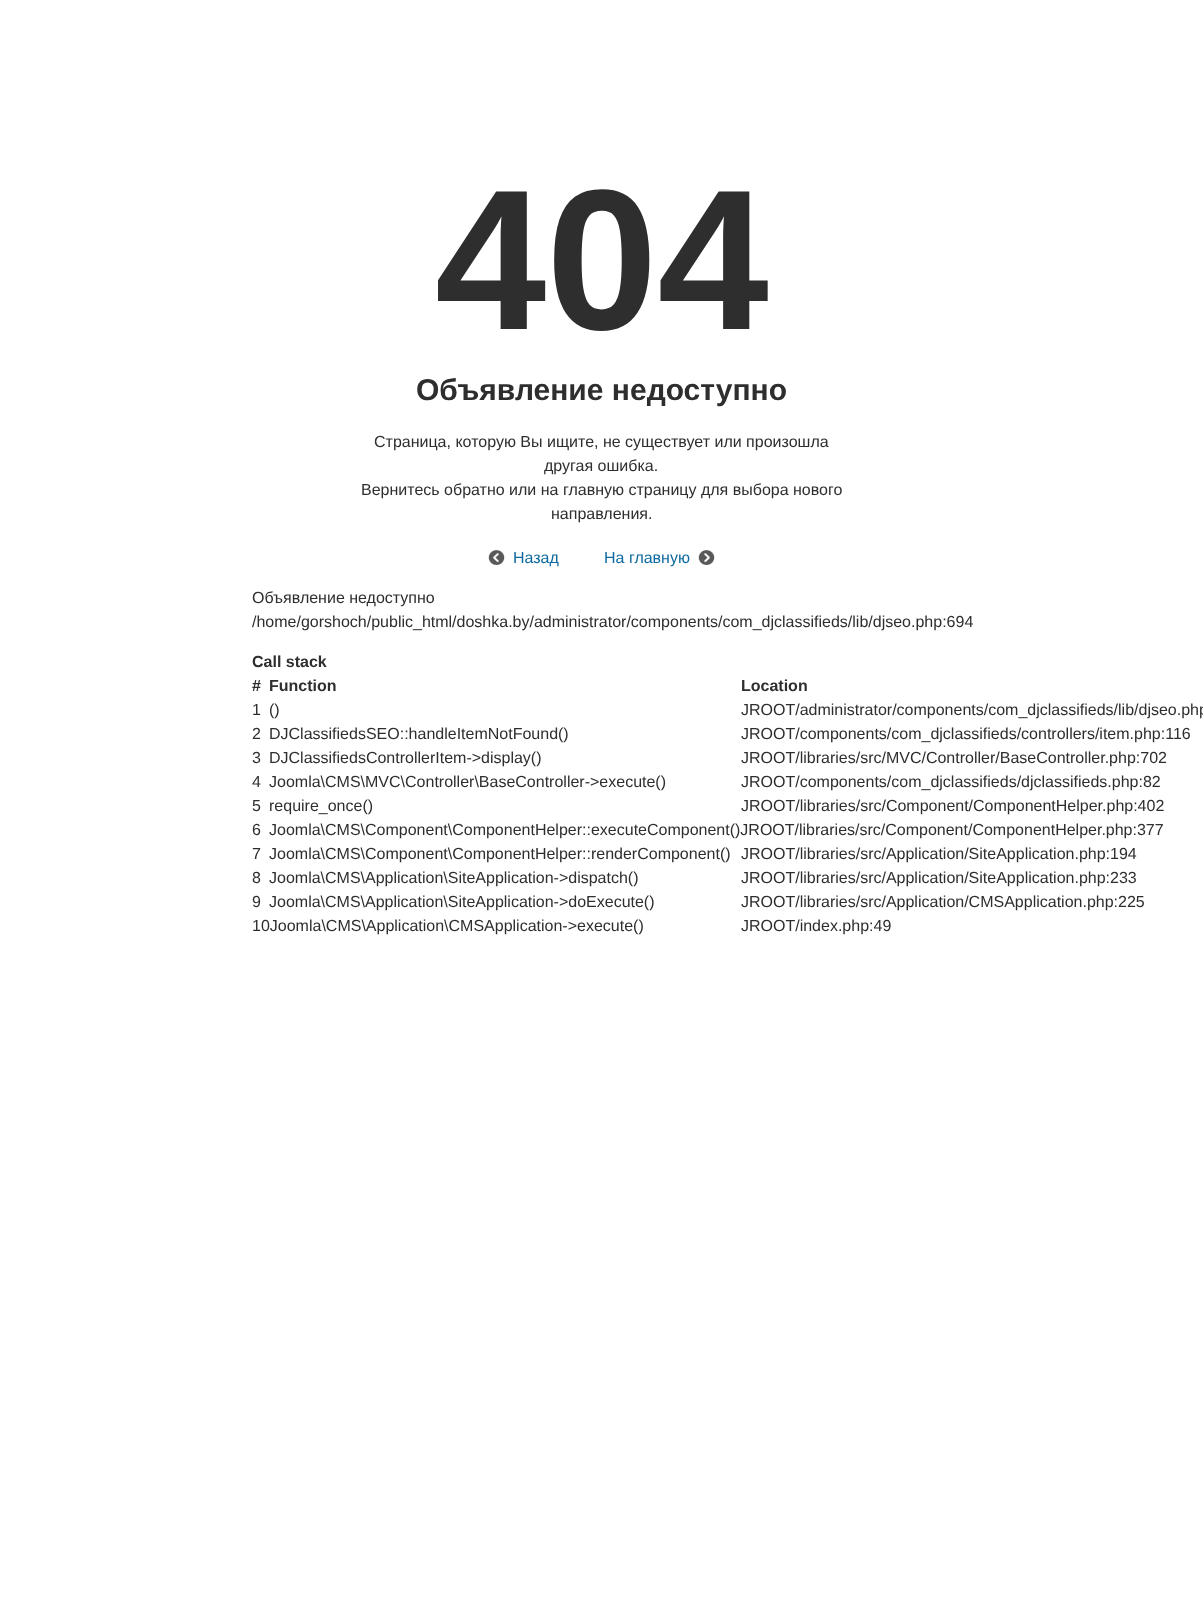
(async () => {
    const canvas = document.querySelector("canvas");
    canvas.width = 1203;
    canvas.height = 1604;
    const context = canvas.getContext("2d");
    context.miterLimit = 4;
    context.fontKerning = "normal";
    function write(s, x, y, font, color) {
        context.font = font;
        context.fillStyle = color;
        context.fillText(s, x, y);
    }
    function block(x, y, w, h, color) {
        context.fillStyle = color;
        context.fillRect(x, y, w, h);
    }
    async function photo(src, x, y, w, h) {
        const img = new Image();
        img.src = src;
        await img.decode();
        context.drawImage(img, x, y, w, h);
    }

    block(0, 0, 1203, 1604, "rgb(255, 255, 255)");
    write("404", 435, 329, "bold 200px Liberation Sans", "rgb(46, 46, 46)");
    write("Объявление недоступно", 416, 400, "bold 30px Liberation Sans", "rgb(46, 46, 46)");
    write("Страница, которую Вы ищите, не существует или произошла", 374, 447, "16px Liberation Sans", "rgb(46, 46, 46)");
    write("другая ошибка.", 544, 471, "16px Liberation Sans", "rgb(46, 46, 46)");
    write("Вернитесь обратно или на главную страницу для выбора нового", 361, 495, "16px Liberation Sans", "rgb(46, 46, 46)");
    write("направления.", 551, 519, "16px Liberation Sans", "rgb(46, 46, 46)");
    await photo("media/1.png", 488, 550, 17, 15);
    write("Назад", 513, 563, "16px Liberation Sans", "rgb(13, 106, 160)");
    write("На главную", 604, 563, "16px Liberation Sans", "rgb(13, 106, 160)");
    await photo("media/2.png", 698, 550, 17, 15);
    write("Объявление недоступно", 252, 603, "16px Liberation Sans", "rgb(46, 46, 46)");
    write("/home/gorshoch/public_html/doshka.by/administrator/components/com_djclassifieds/lib/djseo.php:694", 252, 627, "16px Liberation Sans", "rgb(46, 46, 46)");
    write("Call stack", 252, 667, "bold 16px Liberation Sans", "rgb(46, 46, 46)");
    write("#", 252, 691, "bold 16px Liberation Sans", "rgb(46, 46, 46)");
    write("Function", 269, 691, "bold 16px Liberation Sans", "rgb(46, 46, 46)");
    write("Location", 741, 691, "bold 16px Liberation Sans", "rgb(46, 46, 46)");
    write("1", 252, 715, "16px Liberation Sans", "rgb(46, 46, 46)");
    write("()", 269, 715, "16px Liberation Sans", "rgb(46, 46, 46)");
    write("JROOT/administrator/components/com_djclassifieds/lib/djseo.php", 741, 715, "16px Liberation Sans", "rgb(46, 46, 46)");
    write("2", 252, 739, "16px Liberation Sans", "rgb(46, 46, 46)");
    write("DJClassifiedsSEO::handleItemNotFound()", 269, 739, "16px Liberation Sans", "rgb(46, 46, 46)");
    write("JROOT/components/com_djclassifieds/controllers/item.php:116", 741, 739, "16px Liberation Sans", "rgb(46, 46, 46)");
    write("3", 252, 763, "16px Liberation Sans", "rgb(46, 46, 46)");
    write("DJClassifiedsControllerItem->display()", 269, 763, "16px Liberation Sans", "rgb(46, 46, 46)");
    write("JROOT/libraries/src/MVC/Controller/BaseController.php:702", 741, 763, "16px Liberation Sans", "rgb(46, 46, 46)");
    write("4", 252, 787, "16px Liberation Sans", "rgb(46, 46, 46)");
    write("Joomla\\CMS\\MVC\\Controller\\BaseController->execute()", 269, 787, "16px Liberation Sans", "rgb(46, 46, 46)");
    write("JROOT/components/com_djclassifieds/djclassifieds.php:82", 741, 787, "16px Liberation Sans", "rgb(46, 46, 46)");
    write("5", 252, 811, "16px Liberation Sans", "rgb(46, 46, 46)");
    write("require_once()", 269, 811, "16px Liberation Sans", "rgb(46, 46, 46)");
    write("JROOT/libraries/src/Component/ComponentHelper.php:402", 741, 811, "16px Liberation Sans", "rgb(46, 46, 46)");
    write("6", 252, 835, "16px Liberation Sans", "rgb(46, 46, 46)");
    write("Joomla\\CMS\\Component\\ComponentHelper::executeComponent()JROOT/libraries/src/Component/ComponentHelper.php:377", 269, 835, "16px Liberation Sans", "rgb(46, 46, 46)");
    write("7", 252, 859, "16px Liberation Sans", "rgb(46, 46, 46)");
    write("Joomla\\CMS\\Component\\ComponentHelper::renderComponent()", 269, 859, "16px Liberation Sans", "rgb(46, 46, 46)");
    write("JROOT/libraries/src/Application/SiteApplication.php:194", 741, 859, "16px Liberation Sans", "rgb(46, 46, 46)");
    write("8", 252, 883, "16px Liberation Sans", "rgb(46, 46, 46)");
    write("Joomla\\CMS\\Application\\SiteApplication->dispatch()", 269, 883, "16px Liberation Sans", "rgb(46, 46, 46)");
    write("JROOT/libraries/src/Application/SiteApplication.php:233", 741, 883, "16px Liberation Sans", "rgb(46, 46, 46)");
    write("9", 252, 907, "16px Liberation Sans", "rgb(46, 46, 46)");
    write("Joomla\\CMS\\Application\\SiteApplication->doExecute()", 269, 907, "16px Liberation Sans", "rgb(46, 46, 46)");
    write("JROOT/libraries/src/Application/CMSApplication.php:225", 741, 907, "16px Liberation Sans", "rgb(46, 46, 46)");
    write("10Joomla\\CMS\\Application\\CMSApplication->execute()", 252, 931, "16px Liberation Sans", "rgb(46, 46, 46)");
    write("JROOT/index.php:49", 741, 931, "16px Liberation Sans", "rgb(46, 46, 46)");
})();
